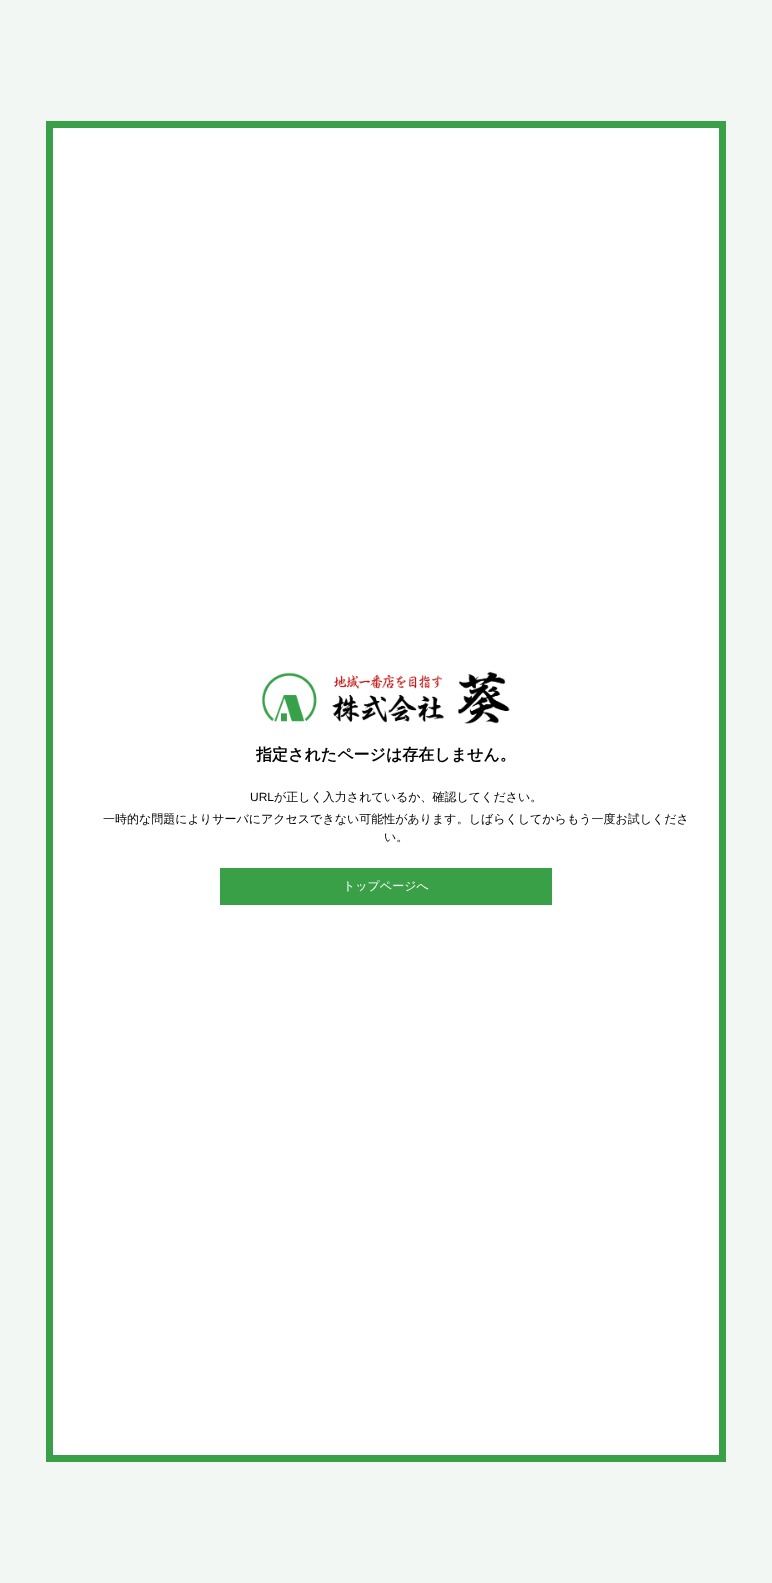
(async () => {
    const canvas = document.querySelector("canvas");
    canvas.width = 772;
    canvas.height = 1583;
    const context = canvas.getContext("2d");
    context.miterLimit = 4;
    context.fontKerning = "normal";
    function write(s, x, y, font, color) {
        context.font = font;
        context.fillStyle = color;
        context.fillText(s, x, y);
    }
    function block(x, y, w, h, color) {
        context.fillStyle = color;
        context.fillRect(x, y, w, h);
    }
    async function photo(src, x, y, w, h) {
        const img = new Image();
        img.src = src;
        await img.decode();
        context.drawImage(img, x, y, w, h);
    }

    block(0, 0, 772, 1583, "rgb(243, 247, 244)");
    context.fillStyle = "rgb(255, 255, 255)";
    context.beginPath();
    context.rect(49.5, 124.5, 673, 1334);
    context.fill();
    context.strokeStyle = "rgb(57, 160, 72)";
    context.lineWidth = 7;
    context.stroke();
    await photo("media/1.png", 261, 671, 249, 53);
    write("指定されたページは存在しません。", 256, 760, "bold 16px WenQuanYi Zen Hei", "rgb(0, 0, 0)");
    write("URL", 250, 801, "12px Liberation Sans", "rgb(0, 0, 0)");
    write("が正しく入力されているか、確認してください。", 274, 801, "500 12px WenQuanYi Zen Hei", "rgb(0, 0, 0)");
    write("一時的な問題によりサーバにアクセスできない可能性があります。しばらくしてからもう一度お試しくださ", 103, 823, "500 12px WenQuanYi Zen Hei", "rgb(0, 0, 0)");
    write("い。", 384, 841, "500 12px WenQuanYi Zen Hei", "rgb(0, 0, 0)");
    block(220, 868, 332, 37, "rgb(57, 160, 72)");
    write("トップページへ", 343, 890, "500 12px WenQuanYi Zen Hei", "rgb(255, 255, 255)");
})();
